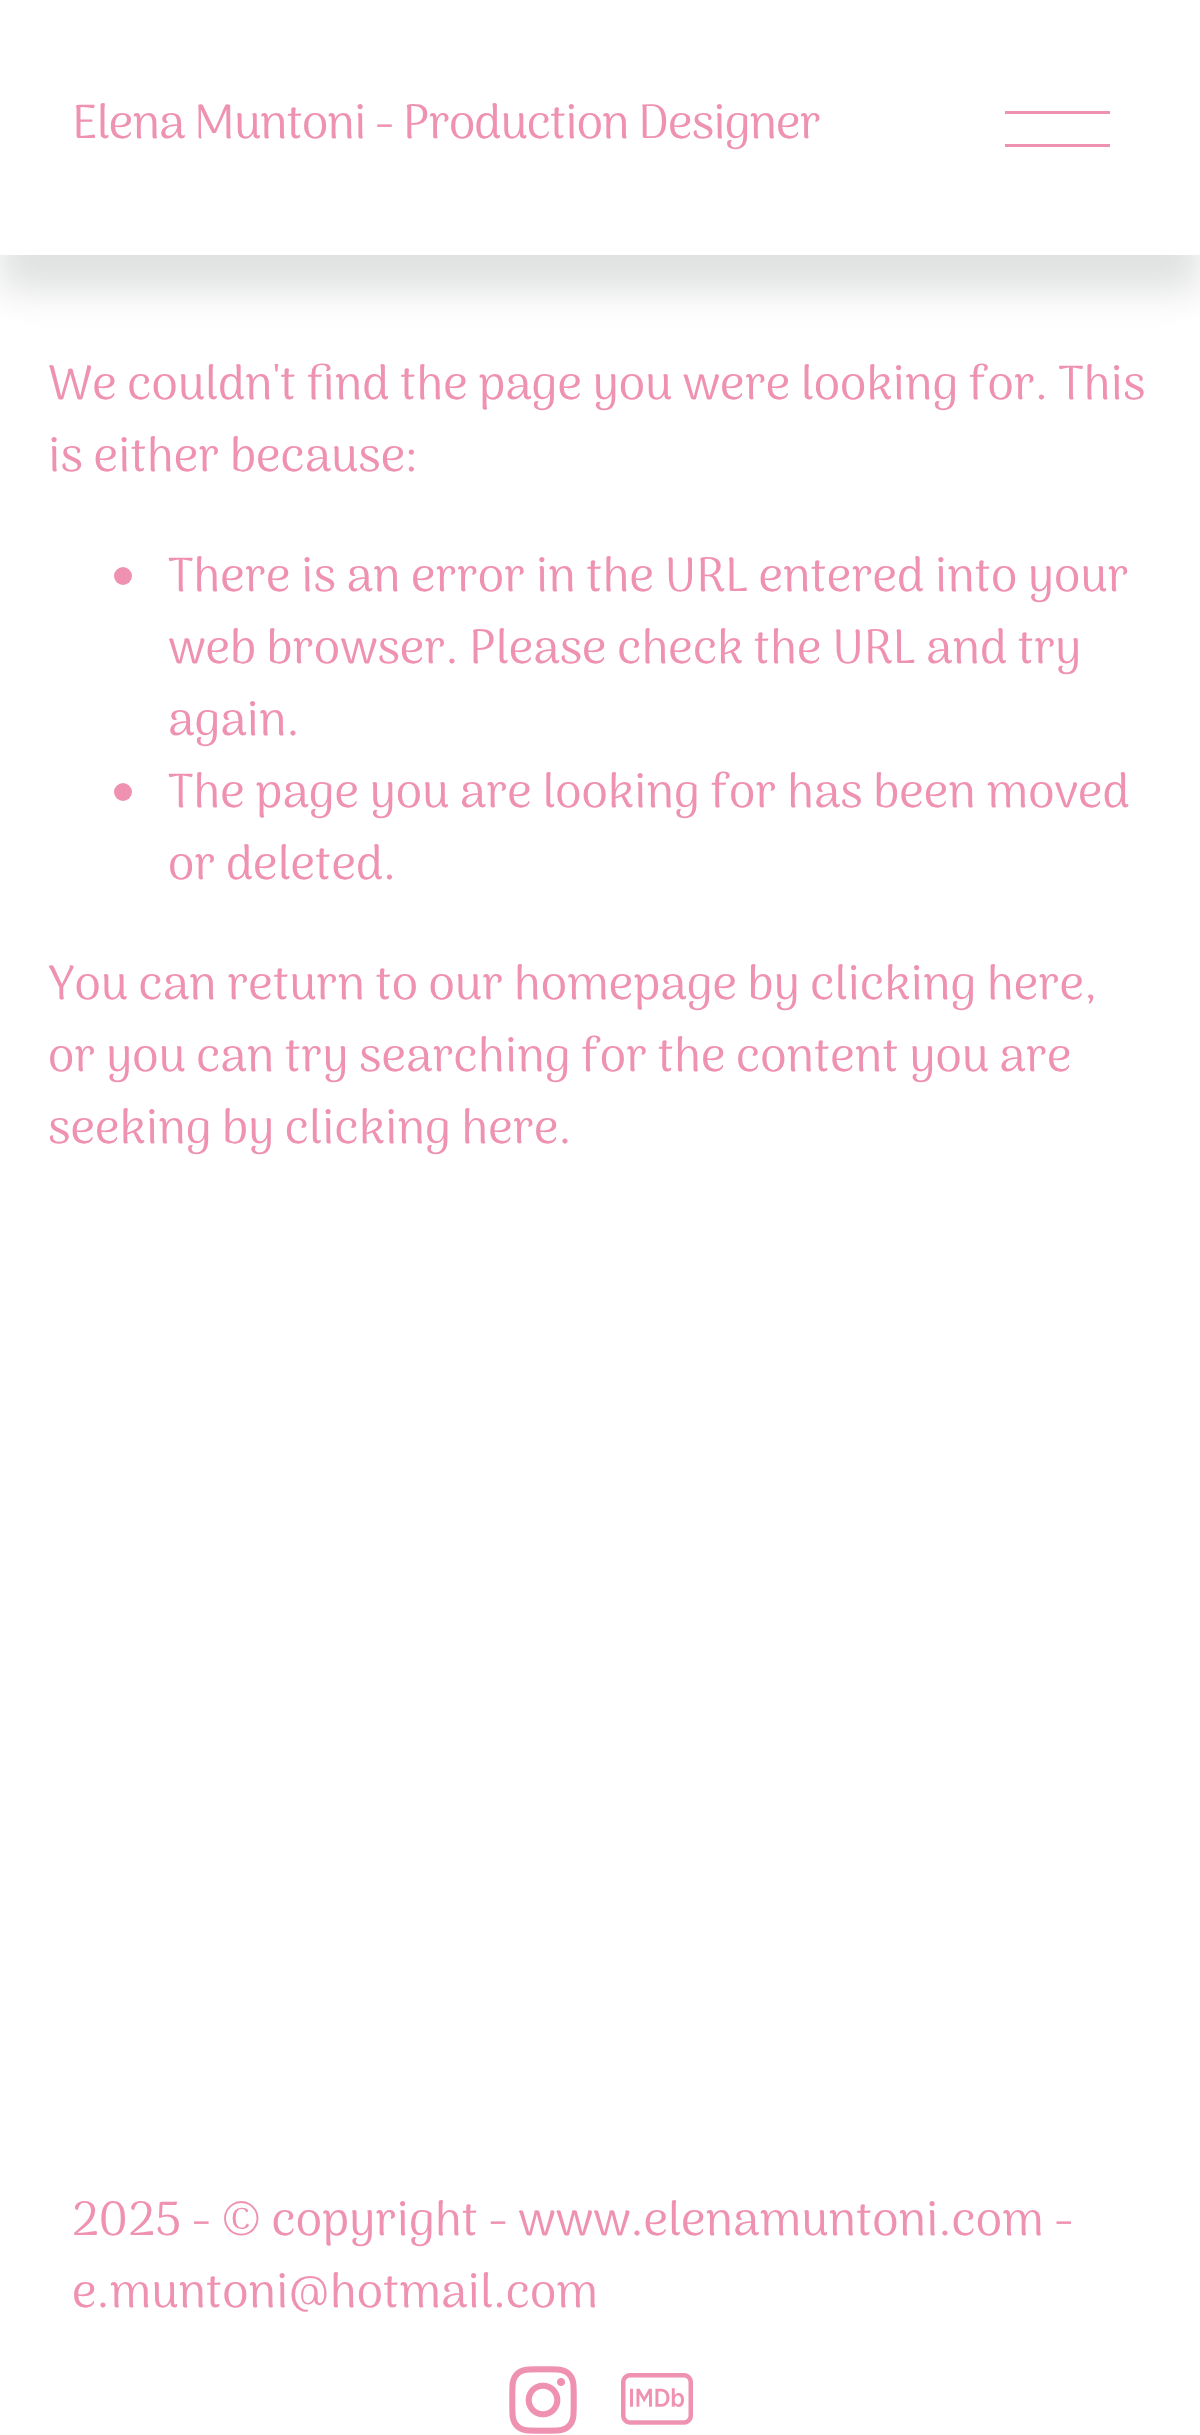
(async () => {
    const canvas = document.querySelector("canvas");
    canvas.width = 1200;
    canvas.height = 2435;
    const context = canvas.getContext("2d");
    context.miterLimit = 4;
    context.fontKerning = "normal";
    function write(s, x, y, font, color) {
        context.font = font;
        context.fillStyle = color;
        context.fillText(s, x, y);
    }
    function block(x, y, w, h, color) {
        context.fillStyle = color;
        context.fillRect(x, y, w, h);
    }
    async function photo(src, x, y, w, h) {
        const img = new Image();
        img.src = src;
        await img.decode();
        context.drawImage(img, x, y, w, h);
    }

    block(0, 0, 1200, 2435, "rgb(255, 255, 255)");
    context.save();
    context.beginPath();
    context.rect(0, 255, 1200, 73);
    context.clip();
    context.fillStyle = "rgb(224, 225, 225)";
    context.filter = "blur(18px)";
    context.beginPath();
    context.rect(0, 36, 1200, 255);
    context.fill();
    context.filter = "none";
    context.restore();
    context.letterSpacing = "-0.95px";
    write("Elena Muntoni - Production Designer", 72, 138, "48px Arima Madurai", "rgb(239, 146, 178)");
    block(1005, 111, 105, 3, "rgb(239, 146, 178)");
    block(1005, 144, 105, 3, "rgb(239, 146, 178)");
    context.letterSpacing = "0px";
    write("We couldn't find the page you were looking for. This", 48, 399, "48px Arima Madurai", "rgb(239, 146, 178)");
    write("is either because:", 48, 471, "48px Arima Madurai", "rgb(239, 146, 178)");
    context.beginPath();
    context.arc(123, 576, 9, 0, Math.PI * 2);
    context.fill();
    write("There is an error in the URL entered into your", 168, 591, "48px Arima Madurai", "rgb(239, 146, 178)");
    write("web browser. Please check the URL and try", 168, 663, "48px Arima Madurai", "rgb(239, 146, 178)");
    write("again.", 168, 735, "48px Arima Madurai", "rgb(239, 146, 178)");
    context.beginPath();
    context.arc(123, 792, 9, 0, Math.PI * 2);
    context.fill();
    write("The page you are looking for has been moved", 168, 807, "48px Arima Madurai", "rgb(239, 146, 178)");
    write("or deleted.", 168, 879, "48px Arima Madurai", "rgb(239, 146, 178)");
    write("You can return to our homepage by clicking here,", 48, 999, "48px Arima Madurai", "rgb(239, 146, 178)");
    write("or you can try searching for the content you are", 48, 1071, "48px Arima Madurai", "rgb(239, 146, 178)");
    write("seeking by clicking here.", 48, 1143, "48px Arima Madurai", "rgb(239, 146, 178)");
    write("2025 - © copyright - www.elenamuntoni.com -", 72, 2235, "48px Arima Madurai", "rgb(239, 146, 178)");
    write("e.muntoni@hotmail.com", 72, 2307, "48px Arima Madurai", "rgb(239, 146, 178)");
    await photo("media/1.png", 509, 2366, 68, 68);
    await photo("media/2.png", 621, 2373, 72, 52);
})();
